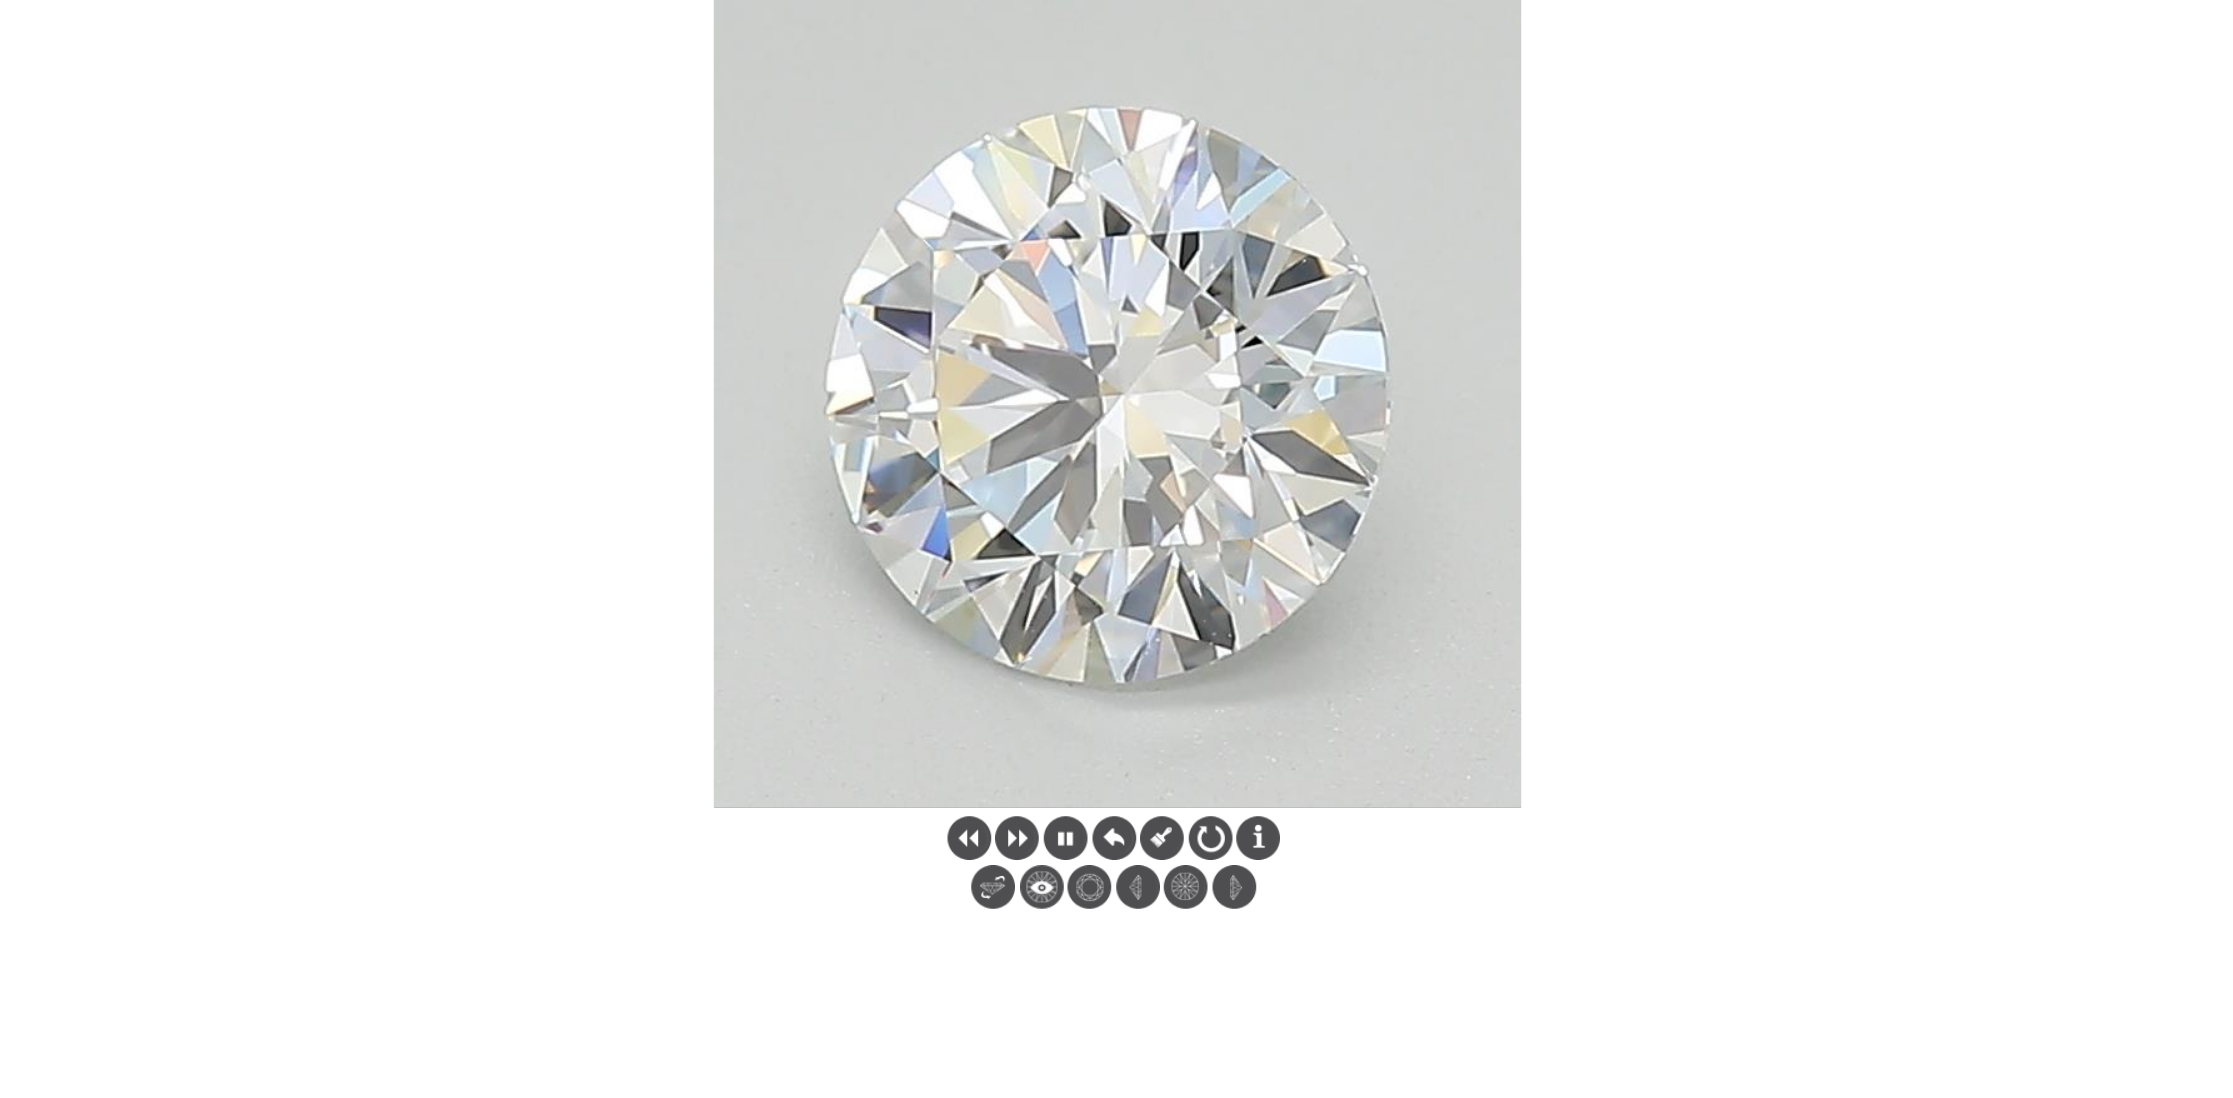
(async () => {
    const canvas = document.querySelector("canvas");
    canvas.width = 2233;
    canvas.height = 1098;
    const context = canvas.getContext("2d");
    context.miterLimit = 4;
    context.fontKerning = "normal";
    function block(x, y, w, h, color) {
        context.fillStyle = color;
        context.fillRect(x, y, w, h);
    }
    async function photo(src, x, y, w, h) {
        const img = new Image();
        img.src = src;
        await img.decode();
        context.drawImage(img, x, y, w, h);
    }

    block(0, 0, 2233, 1098, "rgb(255, 255, 255)");
    block(714, 807, 807, 1, "rgb(172, 170, 172)");
    await photo("media/1.png", 713, 0, 809, 808);
    await photo("media/2.png", 947, 816, 45, 44);
    await photo("media/3.png", 995, 816, 44, 44);
    await photo("media/4.png", 1043, 816, 45, 44);
    await photo("media/5.png", 1092, 816, 45, 44);
    await photo("media/6.png", 1140, 816, 44, 44);
    await photo("media/7.png", 1188, 816, 45, 44);
    await photo("media/8.png", 1236, 816, 44, 44);
    await photo("media/9.png", 971, 865, 44, 44);
    await photo("media/10.png", 1020, 865, 44, 44);
    await photo("media/11.png", 1067, 865, 45, 44);
    await photo("media/12.png", 1116, 865, 44, 44);
    await photo("media/13.png", 1163, 865, 45, 44);
    await photo("media/14.png", 1212, 865, 45, 44);
})();
